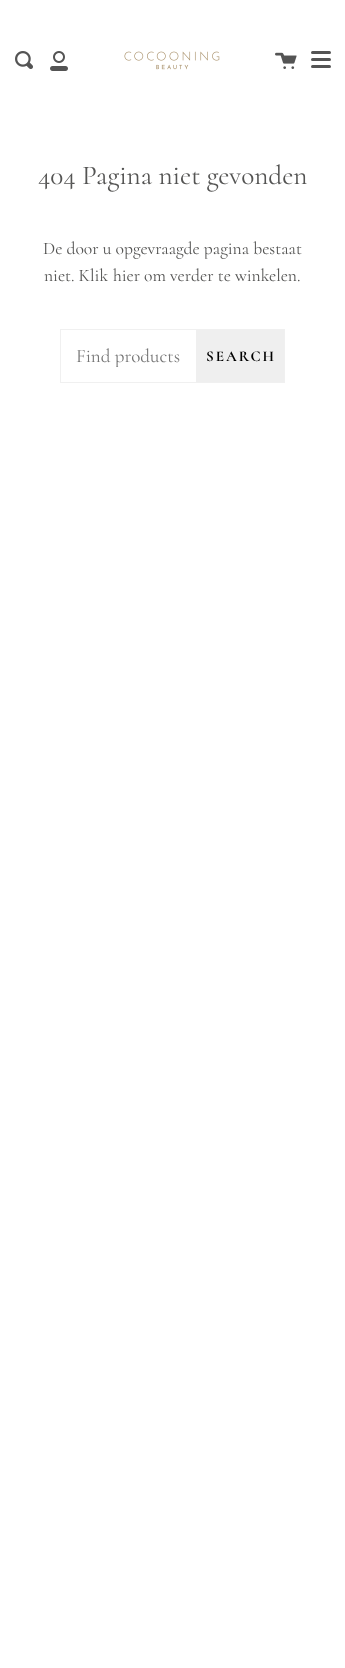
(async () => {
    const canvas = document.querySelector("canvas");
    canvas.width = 345;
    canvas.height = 1668;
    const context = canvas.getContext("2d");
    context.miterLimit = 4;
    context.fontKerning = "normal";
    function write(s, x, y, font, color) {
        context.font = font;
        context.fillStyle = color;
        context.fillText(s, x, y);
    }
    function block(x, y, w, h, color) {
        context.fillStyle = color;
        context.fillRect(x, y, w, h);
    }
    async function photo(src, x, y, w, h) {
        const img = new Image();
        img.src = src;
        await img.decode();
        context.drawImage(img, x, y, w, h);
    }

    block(0, 0, 345, 1668, "rgb(255, 255, 255)");
    await photo("media/1.png", 15, 51, 18, 18);
    await photo("media/2.png", 50, 51, 18, 20);
    await photo("media/3.png", 275, 52, 22, 17);
    await photo("media/4.png", 124, 51, 96, 19);
    context.fillStyle = "rgb(84, 84, 84)";
    context.beginPath();
    context.roundRect(311, 51, 17, 3, [1.5, 0, 0, 1.5]);
    context.fill();
    context.beginPath();
    context.roundRect(314, 51, 17, 3, [0, 1.5, 1.5, 0]);
    context.fill();
    context.beginPath();
    context.roundRect(311, 58, 17, 3, [1.5, 0, 0, 1.5]);
    context.fill();
    context.beginPath();
    context.roundRect(314, 58, 17, 3, [0, 1.5, 1.5, 0]);
    context.fill();
    context.beginPath();
    context.roundRect(311, 65, 17, 3, [1.5, 0, 0, 1.5]);
    context.fill();
    context.beginPath();
    context.roundRect(314, 65, 17, 3, [0, 1.5, 1.5, 0]);
    context.fill();
    write("404 Pagina niet gevonden", 38, 184, "27.25px Cormorant", "rgb(84, 84, 83)");
    write("De door u opgevraagde pagina bestaat", 43, 254, "17.6px Cormorant", "rgb(84, 84, 83)");
    write("niet. Klik", 44, 281, "17.6px Cormorant", "rgb(84, 84, 83)");
    write("hier", 113, 281, "17.6px Cormorant", "rgb(84, 84, 83)");
    write("om verder te winkelen.", 144, 281, "17.6px Cormorant", "rgb(84, 84, 83)");
    context.strokeStyle = "rgb(240, 240, 240)";
    context.strokeRect(60.5, 329.5, 224, 53);
    context.save();
    context.beginPath();
    context.rect(76, 345, 193, 22);
    context.clip();
    write("Find products", 76, 362, "19px Cormorant", "rgb(117, 117, 117)");
    context.restore();
    block(196, 330, 88, 52, "rgb(239, 239, 239)");
    context.letterSpacing = "2px";
    write("SEARCH", 206, 361, "bold 15px Cormorant", "rgb(0, 0, 0)");
})();
